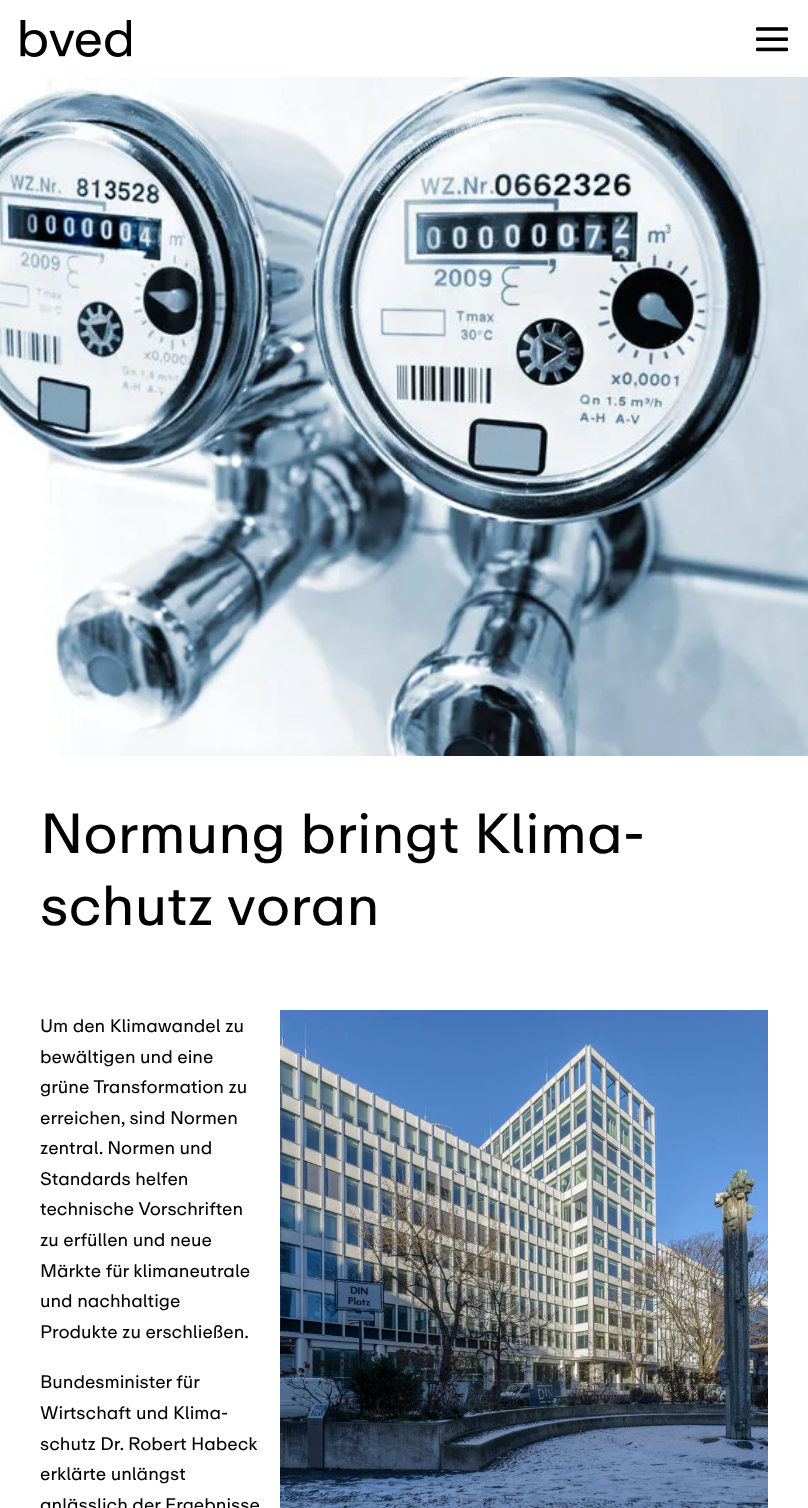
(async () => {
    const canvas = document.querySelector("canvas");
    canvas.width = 808;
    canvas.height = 1508;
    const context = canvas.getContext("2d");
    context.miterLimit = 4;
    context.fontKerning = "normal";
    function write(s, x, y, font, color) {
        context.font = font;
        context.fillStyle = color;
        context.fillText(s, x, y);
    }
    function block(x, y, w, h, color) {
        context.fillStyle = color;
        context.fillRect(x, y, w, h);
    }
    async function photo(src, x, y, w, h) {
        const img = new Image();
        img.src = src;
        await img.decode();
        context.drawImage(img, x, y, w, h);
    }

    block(0, 0, 808, 1508, "rgb(255, 255, 255)");
    await photo("media/1.png", 20, 20, 111, 37);
    await photo("media/2.png", 756, 27, 33, 25);
    await photo("media/3.png", 0, 77, 808, 679);
    write("Normung bringt Klima-", 40, 853, "56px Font", "rgb(0, 0, 0)");
    write("schutz voran", 40, 925, "56px Font", "rgb(0, 0, 0)");
    write("Um den Klimawandel zu", 40, 1032, "18px Font", "rgb(0, 0, 0)");
    write("bewältigen und eine", 40, 1063, "18px Font", "rgb(0, 0, 0)");
    write("grüne Transformation zu", 40, 1093, "18px Font", "rgb(0, 0, 0)");
    write("erreichen, sind Normen", 40, 1124, "18px Font", "rgb(0, 0, 0)");
    write("zentral. Normen und", 40, 1154, "18px Font", "rgb(0, 0, 0)");
    write("Standards helfen", 40, 1185, "18px Font", "rgb(0, 0, 0)");
    write("technische Vorschriften", 40, 1215, "18px Font", "rgb(0, 0, 0)");
    write("zu erfüllen und neue", 40, 1246, "18px Font", "rgb(0, 0, 0)");
    write("Märkte für klimaneutrale", 40, 1277, "18px Font", "rgb(0, 0, 0)");
    write("und nachhaltige", 40, 1307, "18px Font", "rgb(0, 0, 0)");
    write("Produkte zu erschließen.", 40, 1338, "18px Font", "rgb(0, 0, 0)");
    await photo("media/4.png", 280, 1010, 488, 498);
    write("Bundesminister für", 40, 1388, "18px Font", "rgb(0, 0, 0)");
    write("Wirtschaft und Klima-", 40, 1419, "18px Font", "rgb(0, 0, 0)");
    write("schutz Dr. Robert Habeck", 40, 1450, "18px Font", "rgb(0, 0, 0)");
    write("erklärte unlängst", 40, 1480, "18px Font", "rgb(0, 0, 0)");
    write("anlässlich der Ergebnisse", 40, 1511, "18px Font", "rgb(0, 0, 0)");
})();
